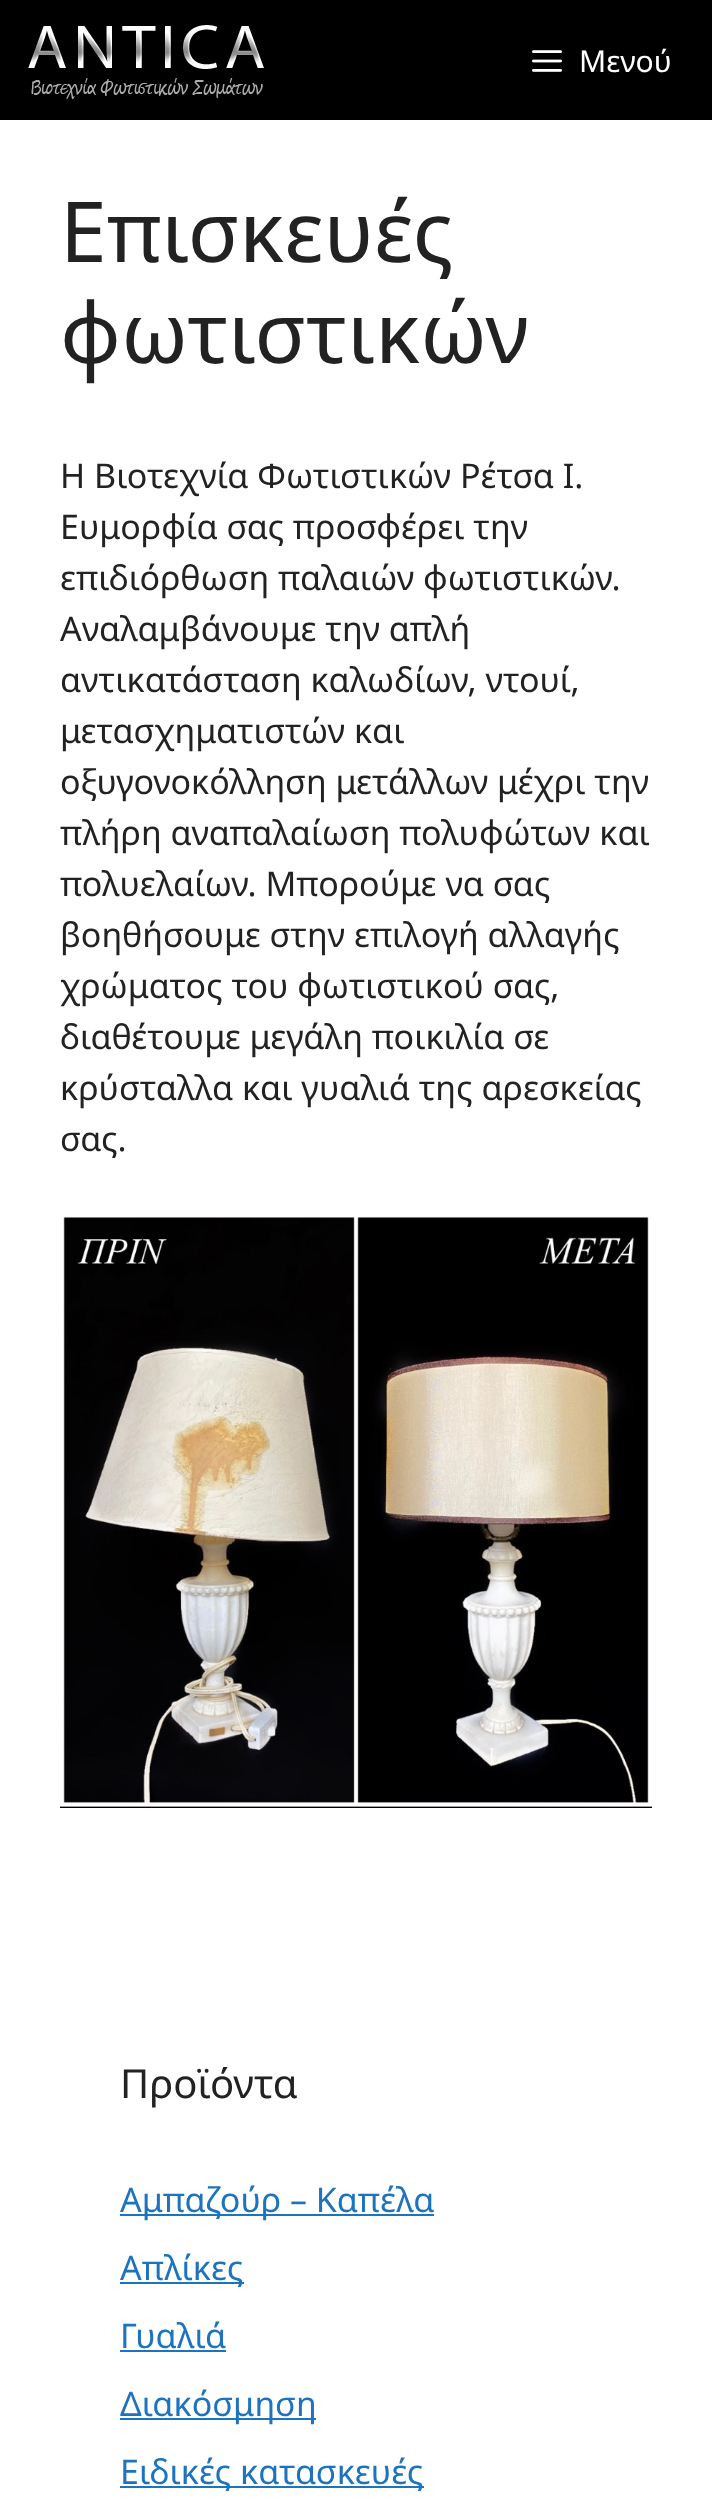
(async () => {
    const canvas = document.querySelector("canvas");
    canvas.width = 712;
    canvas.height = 2509;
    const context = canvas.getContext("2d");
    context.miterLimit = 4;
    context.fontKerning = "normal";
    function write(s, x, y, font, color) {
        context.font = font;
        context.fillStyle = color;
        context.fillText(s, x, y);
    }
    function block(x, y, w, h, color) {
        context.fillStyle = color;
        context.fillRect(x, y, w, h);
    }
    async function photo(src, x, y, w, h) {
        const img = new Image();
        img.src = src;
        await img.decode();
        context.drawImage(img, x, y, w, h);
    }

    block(0, 0, 712, 2509, "rgb(255, 255, 255)");
    block(0, 0, 712, 120, "rgb(0, 0, 0)");
    await photo("media/1.png", 28, 25, 236, 74);
    await photo("media/2.png", 532, 50, 30, 22);
    write("Μενού", 579, 72, "30px Noto Sans", "rgb(255, 255, 255)");
    write("Επισκευές", 60, 262, "84px Noto Sans", "rgb(34, 34, 34)");
    write("φωτιστικών", 60, 363, "84px Noto Sans", "rgb(34, 34, 34)");
    write("Η Βιοτεχνία Φωτιστικών Ρέτσα Ι.", 60, 488, "34px Noto Sans", "rgb(34, 34, 34)");
    write("Ευμορφία σας προσφέρει την", 60, 539, "34px Noto Sans", "rgb(34, 34, 34)");
    write("επιδιόρθωση παλαιών φωτιστικών.", 60, 590, "34px Noto Sans", "rgb(34, 34, 34)");
    write("Αναλαμβάνουμε την απλή", 60, 641, "34px Noto Sans", "rgb(34, 34, 34)");
    write("αντικατάσταση καλωδίων, ντουί,", 60, 692, "34px Noto Sans", "rgb(34, 34, 34)");
    write("μετασχηματιστών και", 60, 743, "34px Noto Sans", "rgb(34, 34, 34)");
    write("οξυγονοκόλληση μετάλλων μέχρι την", 60, 794, "34px Noto Sans", "rgb(34, 34, 34)");
    write("πλήρη αναπαλαίωση πολυφώτων και", 60, 845, "34px Noto Sans", "rgb(34, 34, 34)");
    write("πολυελαίων. Μπορούμε να σας", 60, 896, "34px Noto Sans", "rgb(34, 34, 34)");
    write("βοηθήσουμε στην επιλογή αλλαγής", 60, 947, "34px Noto Sans", "rgb(34, 34, 34)");
    write("χρώματος του φωτιστικού σας,", 60, 998, "34px Noto Sans", "rgb(34, 34, 34)");
    write("διαθέτουμε μεγάλη ποικιλία σε", 60, 1049, "34px Noto Sans", "rgb(34, 34, 34)");
    write("κρύσταλλα και γυαλιά της αρεσκείας", 60, 1100, "34px Noto Sans", "rgb(34, 34, 34)");
    write("σας.", 60, 1151, "34px Noto Sans", "rgb(34, 34, 34)");
    await photo("media/3.png", 60, 1216, 592, 592);
    write("Προϊόντα", 120, 2098, "40px Noto Sans", "rgb(34, 34, 34)");
    block(120, 2214, 314, 2, "rgb(30, 115, 190)");
    write("Αμπαζούρ – Καπέλα", 120, 2212, "34px Noto Sans", "rgb(30, 115, 190)");
    block(120, 2282, 124, 2, "rgb(30, 115, 190)");
    write("Απλίκες", 120, 2280, "34px Noto Sans", "rgb(30, 115, 190)");
    write("Γυαλιά", 120, 2348, "34px Noto Sans", "rgb(30, 115, 190)");
    block(120, 2350, 106, 2, "rgb(30, 115, 190)");
    block(120, 2418, 196, 2, "rgb(30, 115, 190)");
    write("Διακόσμηση", 120, 2416, "34px Noto Sans", "rgb(30, 115, 190)");
    block(120, 2486, 304, 2, "rgb(30, 115, 190)");
    write("Ειδικές κατασκευές", 120, 2484, "34px Noto Sans", "rgb(30, 115, 190)");
})();
